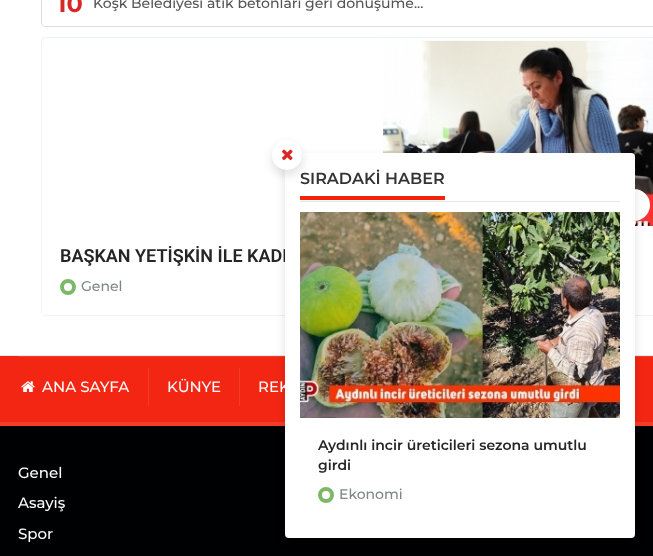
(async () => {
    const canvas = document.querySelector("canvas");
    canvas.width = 653;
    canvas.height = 556;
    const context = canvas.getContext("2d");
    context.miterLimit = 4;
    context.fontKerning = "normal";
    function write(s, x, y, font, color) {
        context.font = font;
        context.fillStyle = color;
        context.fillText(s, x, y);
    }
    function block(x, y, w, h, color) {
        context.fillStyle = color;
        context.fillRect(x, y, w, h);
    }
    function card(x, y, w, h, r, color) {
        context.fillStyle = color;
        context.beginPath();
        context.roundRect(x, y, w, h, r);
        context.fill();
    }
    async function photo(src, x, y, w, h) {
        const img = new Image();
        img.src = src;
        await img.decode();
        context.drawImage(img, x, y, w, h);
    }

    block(0, 0, 653, 556, "rgb(255, 255, 255)");
    context.beginPath();
    context.moveTo(41.5, -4.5);
    context.lineTo(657.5, -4.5);
    context.lineTo(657.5, 23);
    context.bezierCurveTo(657.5, 25, 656, 26.5, 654, 26.5);
    context.lineTo(45, 26.5);
    context.bezierCurveTo(43, 26.5, 41.5, 25, 41.5, 23);
    context.closePath();
    context.strokeStyle = "rgb(221, 221, 221)";
    context.stroke();
    write("10", 57, 12, "bold 24px Montserrat", "rgb(216, 40, 38)");
    write("Köşk Belediyesi atık betonları geri dönüşüme...", 93, 8, "500 14px Montserrat", "rgb(85, 85, 85)");
    context.beginPath();
    context.roundRect(41.5, 37.5, 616, 278, 3.5);
    context.strokeStyle = "rgb(238, 243, 247)";
    context.stroke();
    await photo("media/1.png", 383, 38, 270, 188);
    context.fillStyle = "rgb(255, 255, 255)";
    context.beginPath();
    context.arc(634, 205, 16, 0, Math.PI * 2);
    context.fill();
    block(42, 313, 2, 2, "rgb(255, 255, 255)");
    write("BAŞKAN YETİŞKİN İLE KADI", 60, 262, "600 18px Roboto", "rgb(37, 37, 37)");
    context.beginPath();
    context.arc(68, 287, 6, 0, Math.PI * 2);
    context.strokeStyle = "rgb(125, 184, 105)";
    context.lineWidth = 4;
    context.stroke();
    write("Genel", 81, 291, "500 14px Montserrat", "rgb(125, 134, 136)");
    block(0, 356, 653, 66, "rgb(242, 38, 19)");
    block(0, 355, 653, 1, "rgb(223, 233, 238)");
    block(0, 422, 653, 4, "rgb(244, 60, 43)");
    block(18, 356, 635, 1, "rgb(243, 60, 43)");
    block(0, 426, 653, 130, "rgb(0, 1, 3)");
    context.fillStyle = "rgba(0, 0, 0, 0.1)";
    context.filter = "blur(4px)";
    context.beginPath();
    context.roundRect(284, 157, 352, 387, 5);
    context.fill();
    context.filter = "none";
    write("REK", 258, 392, "500 15px Montserrat", "rgb(252, 252, 252)");
    card(285, 153, 350, 385, 4, "rgb(255, 255, 255)");
    block(300, 201, 320, 1, "rgb(230, 230, 230)");
    write("SIRADAKİ HABER", 300, 184, "600 16px Montserrat", "rgb(51, 51, 51)");
    block(300, 196, 145, 4, "rgb(242, 34, 11)");
    context.fillStyle = "rgba(0, 0, 0, 0.1)";
    context.filter = "blur(4px)";
    context.beginPath();
    context.roundRect(271, 144, 32, 32, 16);
    context.fill();
    context.filter = "none";
    context.fillStyle = "rgb(255, 255, 255)";
    context.beginPath();
    context.arc(287, 155, 15, 0, Math.PI * 2);
    context.fill();
    await photo("media/2.png", 282, 149, 11, 12);
    await photo("media/3.png", 300, 212, 320, 206);
    write("Aydınlı incir üreticileri sezona umutlu", 318, 450, "600 14px Montserrat", "rgb(37, 37, 37)");
    write("girdi", 318, 470, "600 14px Montserrat", "rgb(37, 37, 37)");
    context.beginPath();
    context.arc(326, 495, 6, 0, Math.PI * 2);
    context.stroke();
    write("Ekonomi", 339, 499, "500 14px Montserrat", "rgb(125, 134, 136)");
    block(148, 368, 1, 38, "rgb(244, 60, 43)");
    await photo("media/4.png", 21, 381, 14, 11);
    write("ANA SAYFA", 42, 392, "500 15px Montserrat", "rgb(252, 252, 252)");
    block(239, 368, 1, 38, "rgb(244, 60, 43)");
    write("KÜNYE", 167, 392, "500 15px Montserrat", "rgb(252, 252, 252)");
    write("Genel", 18, 478, "500 15px Montserrat", "rgb(252, 252, 252)");
    write("Asayiş", 18, 508, "500 15px Montserrat", "rgb(252, 252, 252)");
    write("Spor", 18, 539, "500 15px Montserrat", "rgb(252, 252, 252)");
})();
